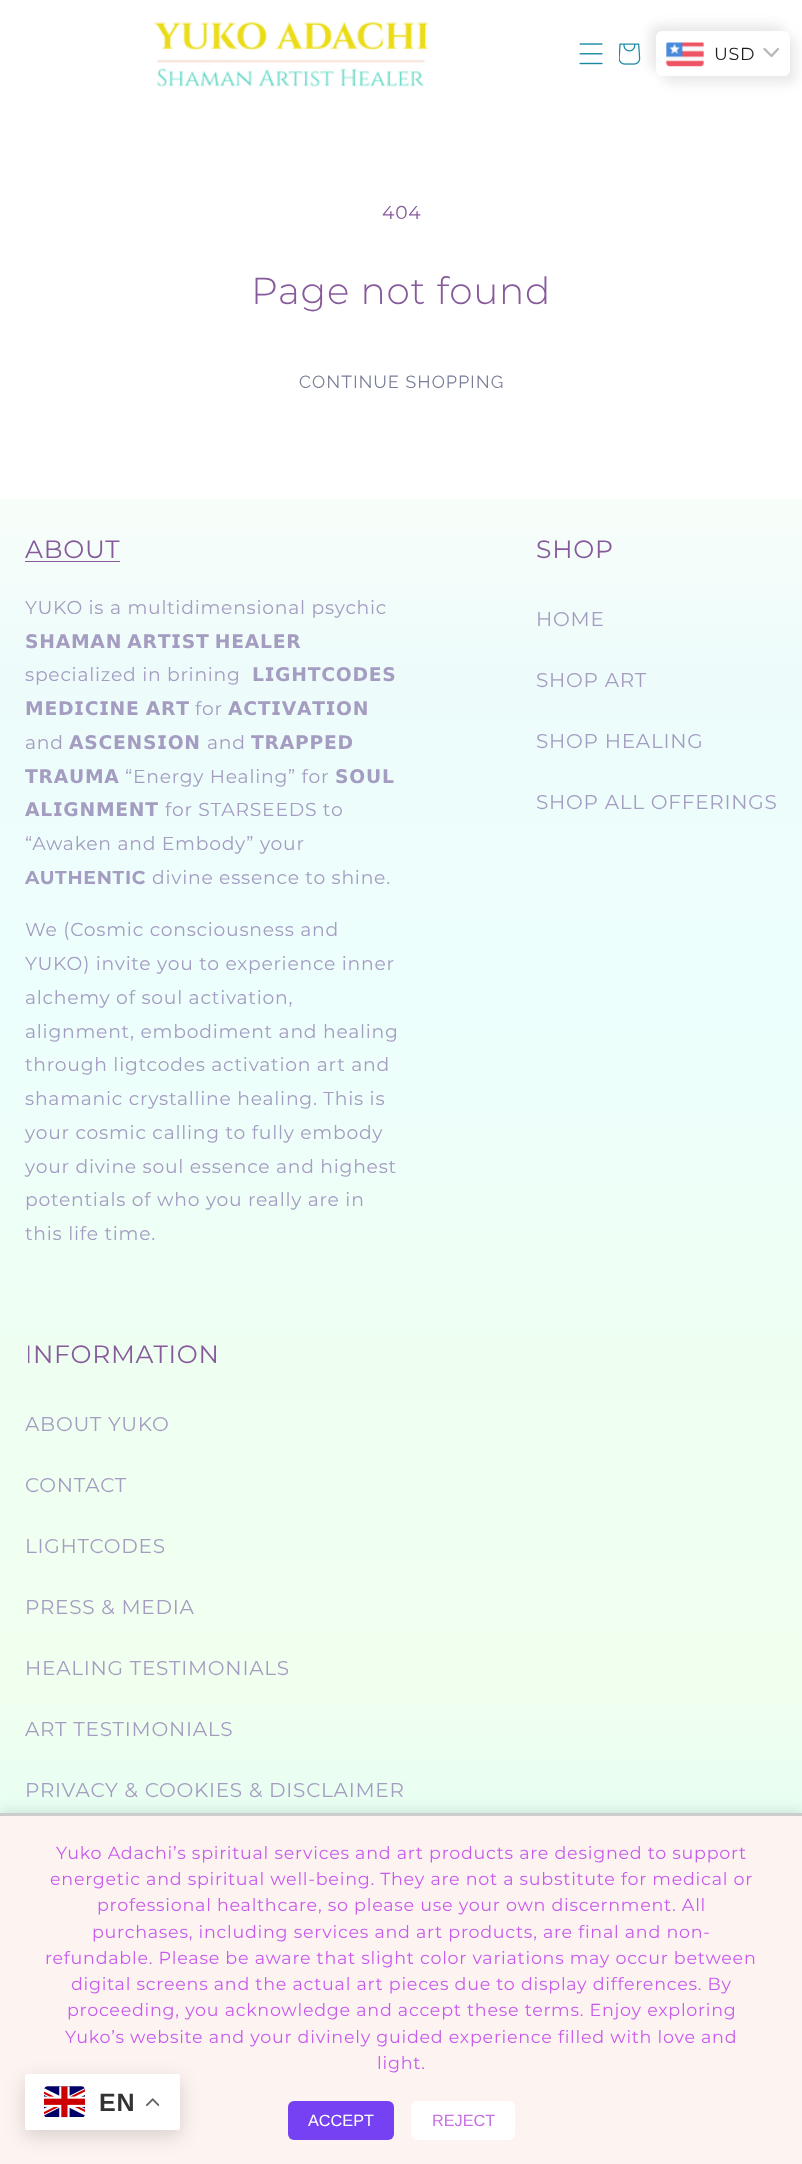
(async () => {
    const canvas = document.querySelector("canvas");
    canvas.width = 802;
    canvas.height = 2164;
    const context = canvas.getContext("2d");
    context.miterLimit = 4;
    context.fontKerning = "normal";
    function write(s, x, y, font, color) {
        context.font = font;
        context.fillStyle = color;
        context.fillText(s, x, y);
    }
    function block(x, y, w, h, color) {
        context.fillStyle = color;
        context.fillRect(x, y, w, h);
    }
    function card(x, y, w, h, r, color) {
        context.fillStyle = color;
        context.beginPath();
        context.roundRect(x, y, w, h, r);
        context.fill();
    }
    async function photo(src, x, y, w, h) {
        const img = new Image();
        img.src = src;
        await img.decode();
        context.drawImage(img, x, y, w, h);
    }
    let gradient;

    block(0, 0, 802, 2164, "rgb(255, 255, 255)");
    await photo("media/1.png", 153, 22, 276, 65);
    await photo("media/2.png", 579, 43, 24, 22);
    await photo("media/3.png", 619, 43, 22, 22);
    context.fillStyle = "rgb(232, 232, 232)";
    context.filter = "blur(6px)";
    context.beginPath();
    context.roundRect(650, 25, 134, 45, 6);
    context.fill();
    context.filter = "none";
    context.filter = "blur(6px)";
    context.beginPath();
    context.roundRect(663, 38, 133, 45, 6);
    context.fill();
    context.filter = "none";
    card(656, 31, 134, 45, 6, "rgb(255, 255, 255)");
    await photo("media/4.png", 665, 42, 39, 25);
    context.letterSpacing = "0.75px";
    write("USD", 714, 60, "17.5px Montserrat", "rgb(30, 30, 30)");
    context.beginPath();
    context.moveTo(764.5, 49);
    context.lineTo(771.5, 56);
    context.lineTo(778, 49);
    context.strokeStyle = "rgb(183, 183, 183)";
    context.lineWidth = 2.3;
    context.lineCap = "round";
    context.lineJoin = "round";
    context.stroke();
    write("404", 382, 219, "18.75px Montserrat", "rgb(135, 90, 155)");
    write("Page not found", 251, 304, "300 37.5px Montserrat", "rgb(135, 90, 155)");
    context.letterSpacing = "1.25px";
    write("CONTINUE SHOPPING", 299, 388, "17.5px Raleway", "rgb(120, 125, 151)");
    gradient = context.createLinearGradient(401, 0, 401, 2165);
    gradient.addColorStop(0, "rgb(250, 242, 252)");
    gradient.addColorStop(0.18, "rgb(255, 255, 249)");
    gradient.addColorStop(0.31, "rgb(237, 252, 251)");
    gradient.addColorStop(0.45, "rgb(237, 255, 253)");
    gradient.addColorStop(0.53, "rgb(238, 255, 250)");
    gradient.addColorStop(0.62, "rgb(238, 255, 242)");
    gradient.addColorStop(0.78, "rgb(241, 255, 239)");
    gradient.addColorStop(1, "rgb(204, 253, 251)");
    context.fillStyle = gradient;
    context.fillRect(0, 499, 802, 1314);
    context.fillStyle = "rgba(0, 0, 0, 0.1)";
    context.filter = "blur(6px)";
    context.beginPath();
    context.rect(0, 1810, 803, 353);
    context.fill();
    context.filter = "none";
    block(0, 1816, 802, 348, "rgb(253, 244, 241)");
    block(0, 1813, 802, 3, "rgb(204, 204, 204)");
    context.letterSpacing = "0.75px";
    write("Yuko Adachi’s spiritual services and art products are designed to support", 56, 1859, "17.5px Montserrat", "rgb(201, 91, 236)");
    write("energetic and spiritual well-being. They are not a substitute for medical or", 50, 1885, "17.5px Montserrat", "rgb(201, 91, 236)");
    write("professional healthcare, so please use your own discernment. All", 97, 1911, "17.5px Montserrat", "rgb(201, 91, 236)");
    write("purchases, including services and art products, are final and non-", 92, 1938, "17.5px Montserrat", "rgb(201, 91, 236)");
    write("refundable. Please be aware that slight color variations may occur between", 45, 1964, "17.5px Montserrat", "rgb(201, 91, 236)");
    write("digital screens and the actual art pieces due to display differences. By", 71, 1990, "17.5px Montserrat", "rgb(201, 91, 236)");
    write("proceeding, you acknowledge and accept these terms. Enjoy exploring", 67, 2016, "17.5px Montserrat", "rgb(201, 91, 236)");
    write("Yuko’s website and your divinely guided experience filled with love and", 65, 2043, "17.5px Montserrat", "rgb(201, 91, 236)");
    write("light.", 377, 2069, "17.5px Montserrat", "rgb(201, 91, 236)");
    card(288, 2101, 106, 39, 6, "rgb(118, 65, 242)");
    context.letterSpacing = "0px";
    write("ACCEPT", 308, 2126, "16.25px Liberation Sans", "rgb(255, 255, 255)");
    card(411, 2101, 104, 39, 6, "rgb(255, 255, 255)");
    write("REJECT", 432, 2126, "16.25px Liberation Sans", "rgb(198, 114, 225)");
    context.letterSpacing = "0.75px";
    write("ABOUT", 25, 558, "25px Montserrat", "rgb(135, 90, 155)");
    block(25, 561, 95, 1, "rgb(135, 90, 155)");
    write("YUKO is a multidimensional psychic", 25, 614, "18.75px Montserrat", "rgb(165, 156, 193)");
    context.wordSpacing = "-2px";
    write("𝗦𝗛𝗔𝗠𝗔𝗡 𝗔𝗥𝗧𝗜𝗦𝗧 𝗛𝗘𝗔𝗟𝗘𝗥", 25, 648, "bold 18.75px DejaVu Sans", "rgb(165, 156, 193)");
    context.wordSpacing = "0px";
    write("specialized in brining", 25, 681, "18.75px Montserrat", "rgb(165, 156, 193)");
    write("𝗟𝗜𝗚𝗛𝗧𝗖𝗢𝗗𝗘𝗦", 252, 681, "bold 18.75px DejaVu Sans", "rgb(165, 156, 193)");
    context.wordSpacing = "-1px";
    write("𝗠𝗘𝗗𝗜𝗖𝗜𝗡𝗘 𝗔𝗥𝗧", 25, 715, "bold 18.75px DejaVu Sans", "rgb(165, 156, 193)");
    context.wordSpacing = "0px";
    write("for", 195, 715, "18.75px Montserrat", "rgb(165, 156, 193)");
    write("𝗔𝗖𝗧𝗜𝗩𝗔𝗧𝗜𝗢𝗡", 228, 715, "bold 18.75px DejaVu Sans", "rgb(165, 156, 193)");
    write("and", 25, 749, "18.75px Montserrat", "rgb(165, 156, 193)");
    write("𝗔𝗦𝗖𝗘𝗡𝗦𝗜𝗢𝗡", 69, 749, "bold 18.75px DejaVu Sans", "rgb(165, 156, 193)");
    write("and", 207, 749, "18.75px Montserrat", "rgb(165, 156, 193)");
    write("𝗧𝗥𝗔𝗣𝗣𝗘𝗗", 251, 749, "bold 18.75px DejaVu Sans", "rgb(165, 156, 193)");
    write("𝗧𝗥𝗔𝗨𝗠𝗔", 25, 783, "bold 18.75px DejaVu Sans", "rgb(165, 156, 193)");
    write("“Energy Healing” for", 125, 783, "18.75px Montserrat", "rgb(165, 156, 193)");
    write("𝗦𝗢𝗨𝗟", 335, 783, "bold 18.75px DejaVu Sans", "rgb(165, 156, 193)");
    write("𝗔𝗟𝗜𝗚𝗡𝗠𝗘𝗡𝗧", 25, 816, "bold 18.75px DejaVu Sans", "rgb(165, 156, 193)");
    write("for STARSEEDS to", 165, 816, "18.75px Montserrat", "rgb(165, 156, 193)");
    write("“Awaken and Embody” your", 25, 850, "18.75px Montserrat", "rgb(165, 156, 193)");
    write("AUTHENTIC", 25, 884, "bold 18.75px Montserrat", "rgb(165, 156, 193)");
    write("divine essence to shine.", 152, 884, "18.75px Montserrat", "rgb(165, 156, 193)");
    write("We (Cosmic consciousness and", 25, 936, "18.75px Montserrat", "rgb(165, 156, 193)");
    write("YUKO) invite you to experience inner", 25, 970, "18.75px Montserrat", "rgb(165, 156, 193)");
    write("alchemy of soul activation,", 25, 1004, "18.75px Montserrat", "rgb(165, 156, 193)");
    write("alignment, embodiment and healing", 25, 1038, "18.75px Montserrat", "rgb(165, 156, 193)");
    write("through ligtcodes activation art and", 25, 1071, "18.75px Montserrat", "rgb(165, 156, 193)");
    write("shamanic crystalline healing. This is", 25, 1105, "18.75px Montserrat", "rgb(165, 156, 193)");
    write("your cosmic calling to fully embody", 25, 1139, "18.75px Montserrat", "rgb(165, 156, 193)");
    write("your divine soul essence and highest", 25, 1173, "18.75px Montserrat", "rgb(165, 156, 193)");
    write("potentials of who you really are in", 25, 1206, "18.75px Montserrat", "rgb(165, 156, 193)");
    write("this life time.", 25, 1240, "18.75px Montserrat", "rgb(165, 156, 193)");
    write("SHOP", 536, 558, "25px Montserrat", "rgb(135, 90, 155)");
    write("HOME", 536, 626, "20px Montserrat", "rgb(165, 156, 193)");
    write("SHOP ART", 536, 687, "20px Montserrat", "rgb(165, 156, 193)");
    write("SHOP HEALING", 536, 748, "20px Montserrat", "rgb(165, 156, 193)");
    write("SHOP ALL OFFERINGS", 536, 809, "20px Montserrat", "rgb(165, 156, 193)");
    write("I", 25, 1363, "300 25px Montserrat", "rgb(135, 90, 155)");
    write("NFORMATION", 33, 1363, "25px Montserrat", "rgb(135, 90, 155)");
    write("ABOUT YUKO", 25, 1431, "20px Montserrat", "rgb(165, 156, 193)");
    write("CONTACT", 25, 1492, "20px Montserrat", "rgb(165, 156, 193)");
    write("LIGHTCODES", 25, 1553, "20px Montserrat", "rgb(165, 156, 193)");
    write("PRESS & MEDIA", 25, 1614, "20px Montserrat", "rgb(165, 156, 193)");
    write("HEALING TESTIMONIALS", 25, 1675, "20px Montserrat", "rgb(165, 156, 193)");
    write("ART TESTIMONIALS", 25, 1736, "20px Montserrat", "rgb(165, 156, 193)");
    write("PRIVACY & COOKIES & DISCLAIMER", 25, 1797, "20px Montserrat", "rgb(165, 156, 193)");
    context.fillStyle = "rgba(0, 0, 0, 0.15)";
    context.filter = "blur(9.5px)";
    context.beginPath();
    context.roundRect(25, 2080, 155, 56, 2.5);
    context.fill();
    context.filter = "none";
    card(25, 2074, 155, 56, 2.5, "rgb(255, 255, 255)");
    await photo("media/5.png", 44, 2086, 41, 32);
    write("EN", 99, 2111, "bold 25px Liberation Sans", "rgb(51, 51, 51)");
    await photo("media/6.png", 145, 2098, 14, 9);
})();
